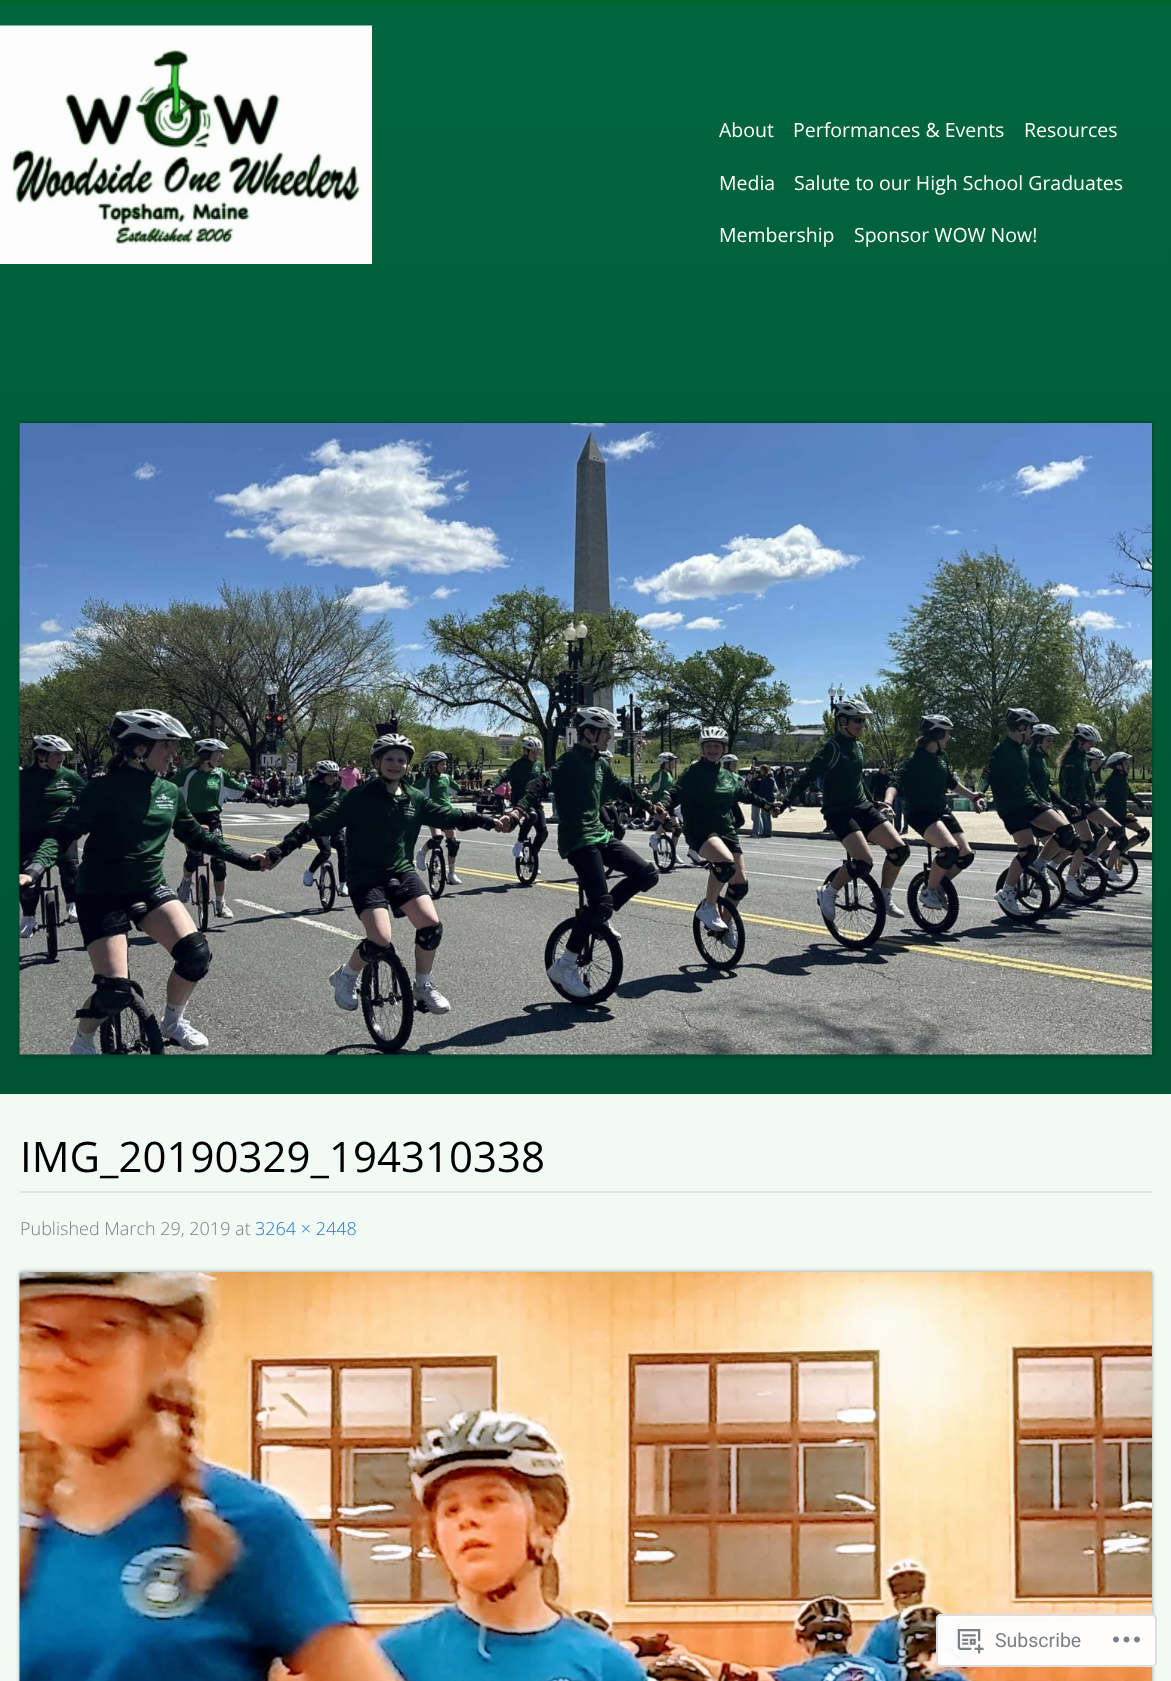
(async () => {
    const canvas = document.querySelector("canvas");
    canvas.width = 1171;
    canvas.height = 1681;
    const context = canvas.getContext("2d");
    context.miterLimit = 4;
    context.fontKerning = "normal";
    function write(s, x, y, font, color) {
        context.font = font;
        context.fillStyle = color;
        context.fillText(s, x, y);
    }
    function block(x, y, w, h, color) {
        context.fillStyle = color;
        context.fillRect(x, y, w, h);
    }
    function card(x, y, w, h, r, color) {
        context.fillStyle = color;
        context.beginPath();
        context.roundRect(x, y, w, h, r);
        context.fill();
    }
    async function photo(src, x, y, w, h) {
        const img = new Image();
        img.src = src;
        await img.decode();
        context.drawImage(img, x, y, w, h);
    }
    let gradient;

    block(0, 0, 1171, 1681, "rgb(255, 255, 255)");
    gradient = context.createLinearGradient(0, 6, 0, 1094);
    gradient.addColorStop(0, "rgb(0, 102, 64)");
    gradient.addColorStop(1, "rgb(0, 82, 52)");
    context.fillStyle = gradient;
    context.fillRect(0, 6, 1171, 1088);
    block(0, 0, 1171, 6, "rgb(0, 102, 48)");
    await photo("media/1.png", 0, 25, 372, 239);
    write("About", 719, 137, "19.5px Open Sans", "rgb(255, 255, 255)");
    write("Performances & Events", 793, 137, "19.5px Open Sans", "rgb(255, 255, 255)");
    write("Resources", 1024, 137, "19.5px Open Sans", "rgb(255, 255, 255)");
    write("Media", 719, 190, "19.5px Open Sans", "rgb(255, 255, 255)");
    write("Salute to our High School Graduates", 794, 190, "19.5px Open Sans", "rgb(255, 255, 255)");
    write("Membership", 719, 242, "19.5px Open Sans", "rgb(255, 255, 255)");
    write("Sponsor WOW Now!", 854, 242, "19.5px Open Sans", "rgb(255, 255, 255)");
    context.fillStyle = "rgba(0, 0, 0, 0.4)";
    context.filter = "blur(2px)";
    context.beginPath();
    context.rect(20, 423, 1132, 632);
    context.fill();
    context.filter = "none";
    await photo("media/2.png", 19, 423, 1133, 632);
    block(0, 1094, 1171, 587, "rgb(242, 250, 246)");
    block(20, 1191, 1132, 2, "rgb(227, 227, 227)");
    write("IMG_20190329_194310338", 20, 1172, "42px Open Sans", "rgb(0, 0, 0)");
    write("Published March 29, 2019 at", 20, 1235, "300 18px Open Sans", "rgb(125, 125, 125)");
    write("3264 × 2448", 255, 1235, "300 18px Open Sans", "rgb(35, 119, 204)");
    context.fillStyle = "rgba(0, 0, 0, 0.4)";
    context.filter = "blur(2px)";
    context.beginPath();
    context.rect(20, 1272, 1132, 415);
    context.fill();
    context.filter = "none";
    await photo("media/3.png", 19, 1272, 1133, 409);
    card(936, 1614, 221, 53, 5, "rgba(255, 255, 255, 0.98)");
    context.beginPath();
    context.roundRect(937, 1615, 219, 51, 4);
    context.strokeStyle = "rgba(220, 220, 222, 0.98)";
    context.lineWidth = 2;
    context.stroke();
    await photo("media/4.png", 957, 1629, 27, 25);
    write("Subscribe", 995, 1647, "19.5px Roboto", "rgb(123, 127, 132)");
    await photo("media/5.png", 1113, 1636, 27, 7);
})();
